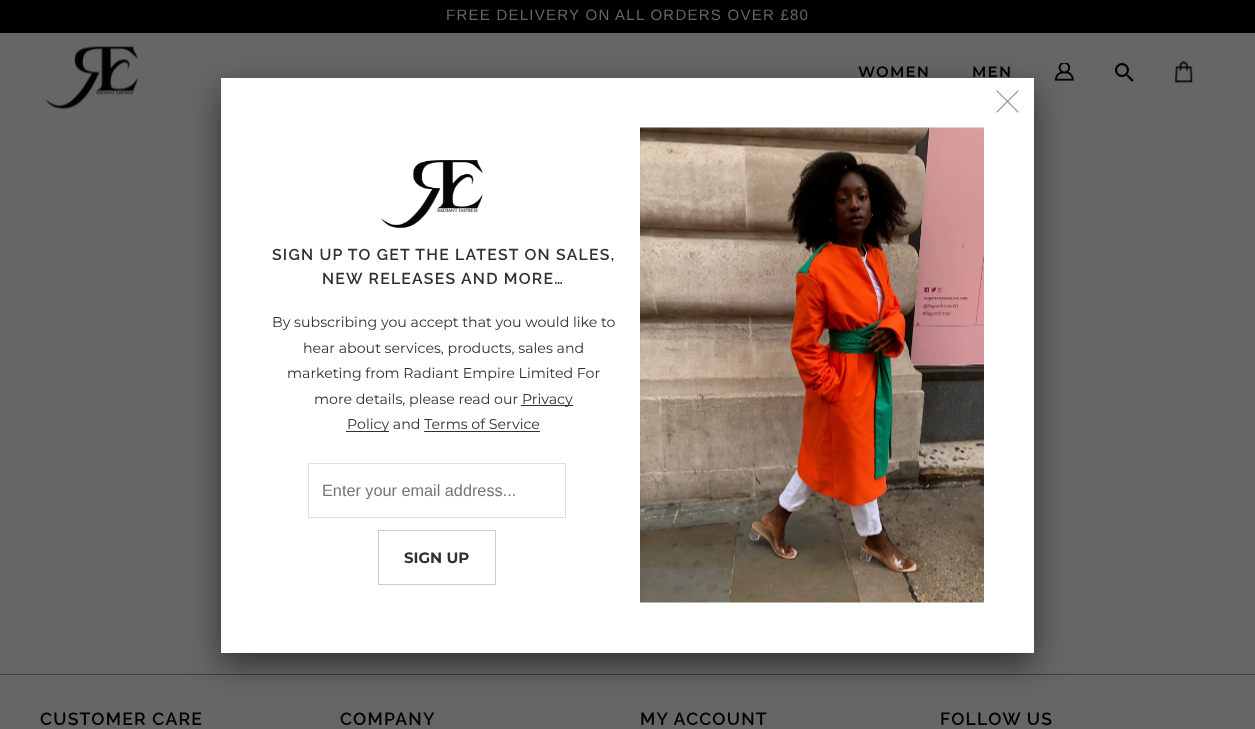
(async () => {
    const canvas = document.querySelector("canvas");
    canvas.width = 1255;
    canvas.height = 729;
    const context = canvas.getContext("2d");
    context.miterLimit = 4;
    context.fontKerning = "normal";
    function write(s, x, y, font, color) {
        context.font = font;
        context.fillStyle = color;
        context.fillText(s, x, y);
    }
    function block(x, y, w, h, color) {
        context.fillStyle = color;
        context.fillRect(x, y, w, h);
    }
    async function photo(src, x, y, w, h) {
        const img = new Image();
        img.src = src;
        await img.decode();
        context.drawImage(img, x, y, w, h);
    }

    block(0, 0, 1255, 729, "rgb(102, 102, 102)");
    block(0, 0, 1255, 33, "rgb(0, 0, 0)");
    context.letterSpacing = "1.25px";
    write("FREE DELIVERY ON ALL ORDERS OVER £80", 446, 20, "15px Liberation Sans", "rgb(102, 102, 102)");
    await photo("media/1.png", 45, 46, 94, 63);
    write("WOMEN", 858, 77, "600 15px Montserrat", "rgb(0, 0, 0)");
    write("MEN", 972, 77, "600 15px Montserrat", "rgb(0, 0, 0)");
    await photo("media/2.png", 1055, 63, 19, 18);
    await photo("media/3.png", 1115, 63, 19, 19);
    await photo("media/4.png", 1175, 61, 18, 22);
    block(0, 674, 1255, 1, "rgb(61, 61, 61)");
    context.fillStyle = "rgba(0, 0, 0, 0.5)";
    context.filter = "blur(15.5px)";
    context.beginPath();
    context.rect(221, 90, 813, 575);
    context.fill();
    context.filter = "none";
    block(221, 78, 813, 575, "rgb(255, 255, 255)");
    await photo("media/5.png", 996, 90, 23, 23);
    await photo("media/6.png", 381, 160, 102, 69);
    write("SIGN UP TO GET THE LATEST ON SALES,", 272, 260, "600 15.75px Raleway", "rgb(48, 48, 48)");
    write("NEW RELEASES AND MORE…", 322, 284, "600 15.75px Raleway", "rgb(48, 48, 48)");
    context.letterSpacing = "0px";
    write("By subscribing you accept that you would like to", 272, 327, "14.2px Montserrat", "rgb(48, 48, 48)");
    write("hear about services, products, sales and", 303, 353, "14.2px Montserrat", "rgb(48, 48, 48)");
    write("marketing from Radiant Empire Limited For", 287, 378, "14.2px Montserrat", "rgb(48, 48, 48)");
    write("more details, please read our", 314, 404, "14.2px Montserrat", "rgb(48, 48, 48)");
    block(521, 405, 52, 1, "rgb(48, 48, 48)");
    write("Privacy", 522, 404, "14.2px Montserrat", "rgb(48, 48, 48)");
    block(346, 431, 43, 1, "rgb(48, 48, 48)");
    write("Policy and Terms of Service", 347, 429, "14.2px Montserrat", "rgb(48, 48, 48)");
    block(424, 431, 116, 1, "rgb(48, 48, 48)");
    context.strokeStyle = "rgb(220, 224, 224)";
    context.strokeRect(308.5, 463.5, 257, 54);
    context.save();
    context.beginPath();
    context.rect(321, 480, 232, 19);
    context.clip();
    write("Enter your email address...", 322, 496, "16.25px Liberation Sans", "rgb(117, 117, 117)");
    context.restore();
    context.strokeStyle = "rgb(204, 204, 204)";
    context.strokeRect(378.5, 530.5, 117, 54);
    write("SIGN UP", 404, 563, "bold 15px Montserrat", "rgb(48, 48, 48)");
    await photo("media/7.png", 640, 127, 344, 476);
    context.letterSpacing = "1.25px";
    write("CUSTOMER CARE", 40, 725, "600 17.5px Raleway", "rgb(0, 0, 0)");
    write("COMPANY", 340, 725, "600 17.5px Raleway", "rgb(0, 0, 0)");
    write("MY ACCOUNT", 640, 725, "600 17.5px Raleway", "rgb(0, 0, 0)");
    write("FOLLOW US", 940, 725, "600 17.5px Raleway", "rgb(0, 0, 0)");
})();
